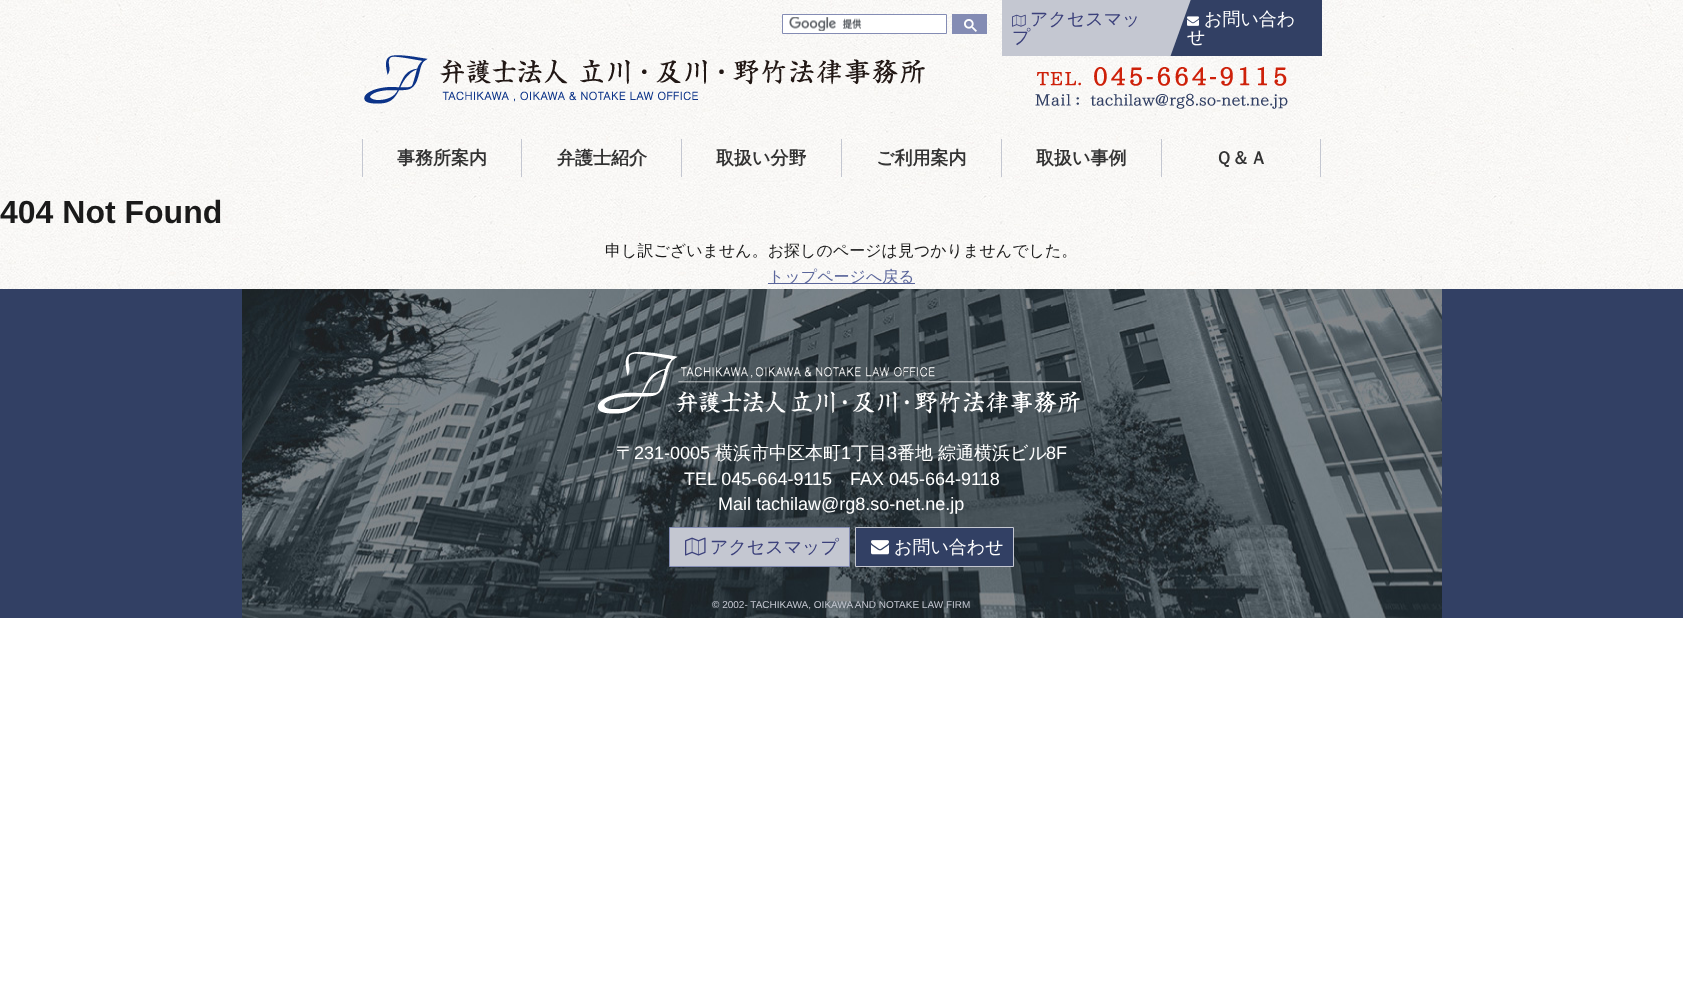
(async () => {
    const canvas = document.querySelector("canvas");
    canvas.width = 1683;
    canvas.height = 986;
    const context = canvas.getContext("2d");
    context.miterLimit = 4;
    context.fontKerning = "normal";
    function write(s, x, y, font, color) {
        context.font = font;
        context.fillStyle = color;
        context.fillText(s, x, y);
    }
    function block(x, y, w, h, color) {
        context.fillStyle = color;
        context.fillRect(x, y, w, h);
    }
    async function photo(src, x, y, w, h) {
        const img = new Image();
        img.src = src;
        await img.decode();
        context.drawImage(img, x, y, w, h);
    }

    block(0, 0, 1683, 986, "rgb(255, 255, 255)");
    await photo("media/1.png", 0, 0, 1683, 289);
    context.beginPath();
    context.rect(782.5, 14.5, 164, 19);
    context.fill();
    context.strokeStyle = "rgb(132, 140, 180)";
    context.stroke();
    await photo("media/2.png", 789, 17, 73, 14);
    block(952, 14, 35, 20, "rgb(132, 140, 180)");
    await photo("media/3.png", 964, 19, 13, 13);
    block(1002, 0, 160, 56, "rgb(196, 199, 209)");
    await photo("media/4.png", 1012, 14, 14, 13);
    write("アクセスマッ", 1030, 25, "500 18px WenQuanYi Zen Hei", "rgb(59, 64, 123)");
    write("プ", 1012, 43, "500 18px WenQuanYi Zen Hei", "rgb(59, 64, 123)");
    block(1170, 0, 152, 56, "rgb(50, 64, 100)");
    await photo("media/5.png", 1187, 16, 12, 10);
    write("せ", 1187, 43, "500 18px WenQuanYi Zen Hei", "rgb(255, 255, 255)");
    context.save();
    context.beginPath();
    context.rect(1162, 0, 160, 56);
    context.clip();
    context.fillStyle = "rgb(196, 199, 209)";
    context.beginPath();
    context.moveTo(1097, 93);
    context.lineTo(1152, -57);
    context.lineTo(1204, -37);
    context.lineTo(1150, 113);
    context.closePath();
    context.fill();
    context.restore();
    write("お問い合わ", 1204, 25, "500 18px WenQuanYi Zen Hei", "rgb(255, 255, 255)");
    await photo("media/6.png", 1037, 66, 250, 20);
    await photo("media/7.png", 1035, 93, 253, 16);
    await photo("media/8.png", 364, 55, 561, 49);
    block(362, 139, 1, 38, "rgb(196, 199, 209)");
    write("事務所案内", 397, 164, "bold 18px WenQuanYi Zen Hei", "rgb(51, 51, 51)");
    block(521, 139, 1, 38, "rgb(196, 199, 209)");
    write("弁護士紹介", 557, 164, "bold 18px WenQuanYi Zen Hei", "rgb(51, 51, 51)");
    block(681, 139, 1, 38, "rgb(196, 199, 209)");
    write("取扱い分野", 716, 164, "bold 18px WenQuanYi Zen Hei", "rgb(51, 51, 51)");
    block(841, 139, 1, 38, "rgb(196, 199, 209)");
    write("ご利用案内", 876, 164, "bold 18px WenQuanYi Zen Hei", "rgb(51, 51, 51)");
    block(1001, 139, 1, 38, "rgb(196, 199, 209)");
    write("取扱い事例", 1036, 164, "bold 18px WenQuanYi Zen Hei", "rgb(51, 51, 51)");
    block(1320, 139, 1, 38, "rgb(196, 199, 209)");
    block(1161, 139, 1, 38, "rgb(196, 199, 209)");
    write("Ｑ＆Ａ", 1215, 164, "bold 18px WenQuanYi Zen Hei", "rgb(51, 51, 51)");
    write("404 Not Found", 0, 223, "bold 32px Liberation Sans", "rgb(26, 26, 26)");
    write("申し訳ございません。お探しのページは見つかりませんでした。", 605, 256, "500 16px WenQuanYi Zen Hei", "rgb(26, 26, 26)");
    block(768, 283, 147, 1, "rgb(91, 102, 155)");
    write("トップページへ戻る", 768, 282, "500 16px WenQuanYi Zen Hei", "rgb(91, 102, 155)");
    block(0, 289, 1683, 329, "rgb(50, 64, 100)");
    await photo("media/9.png", 242, 289, 1200, 329);
    await photo("media/10.png", 597, 351, 484, 63);
    write("〒", 616, 459, "500 18px WenQuanYi Zen Hei", "rgb(255, 255, 255)");
    write("231-0005", 634, 459, "18px Liberation Sans", "rgb(255, 255, 255)");
    write("横浜市中区本町", 715, 459, "500 18px WenQuanYi Zen Hei", "rgb(255, 255, 255)");
    write("1", 841, 459, "18px Liberation Sans", "rgb(255, 255, 255)");
    write("丁目", 851, 459, "500 18px WenQuanYi Zen Hei", "rgb(255, 255, 255)");
    write("3", 887, 459, "18px Liberation Sans", "rgb(255, 255, 255)");
    write("番地", 897, 459, "500 18px WenQuanYi Zen Hei", "rgb(255, 255, 255)");
    write("綜通横浜ビル", 938, 459, "500 18px WenQuanYi Zen Hei", "rgb(255, 255, 255)");
    write("8F", 1046, 459, "18px Liberation Sans", "rgb(255, 255, 255)");
    write("TEL 045-664-9115", 684, 485, "18px Liberation Sans", "rgb(255, 255, 255)");
    write("FAX 045-664-9118", 850, 485, "18px Liberation Sans", "rgb(255, 255, 255)");
    write("Mail tachilaw@rg8.so-net.ne.jp", 718, 510, "18px Liberation Sans", "rgb(255, 255, 255)");
    context.fillStyle = "rgb(196, 199, 209)";
    context.beginPath();
    context.rect(669.5, 527.5, 180, 39);
    context.fill();
    context.stroke();
    await photo("media/11.png", 685, 537, 21, 19);
    write("アクセスマップ", 710, 553, "500 18px WenQuanYi Zen Hei", "rgb(59, 64, 123)");
    context.fillStyle = "rgb(50, 64, 100)";
    context.beginPath();
    context.rect(855.5, 527.5, 158, 39);
    context.fill();
    context.strokeStyle = "rgb(196, 199, 209)";
    context.stroke();
    await photo("media/12.png", 871, 540, 18, 15);
    write("お問い合わせ", 894, 553, "500 18px WenQuanYi Zen Hei", "rgb(255, 255, 255)");
    write("© 2002- TACHIKAWA, OIKAWA AND NOTAKE LAW FIRM", 712, 608, "10px Liberation Sans", "rgb(196, 199, 209)");
})();
